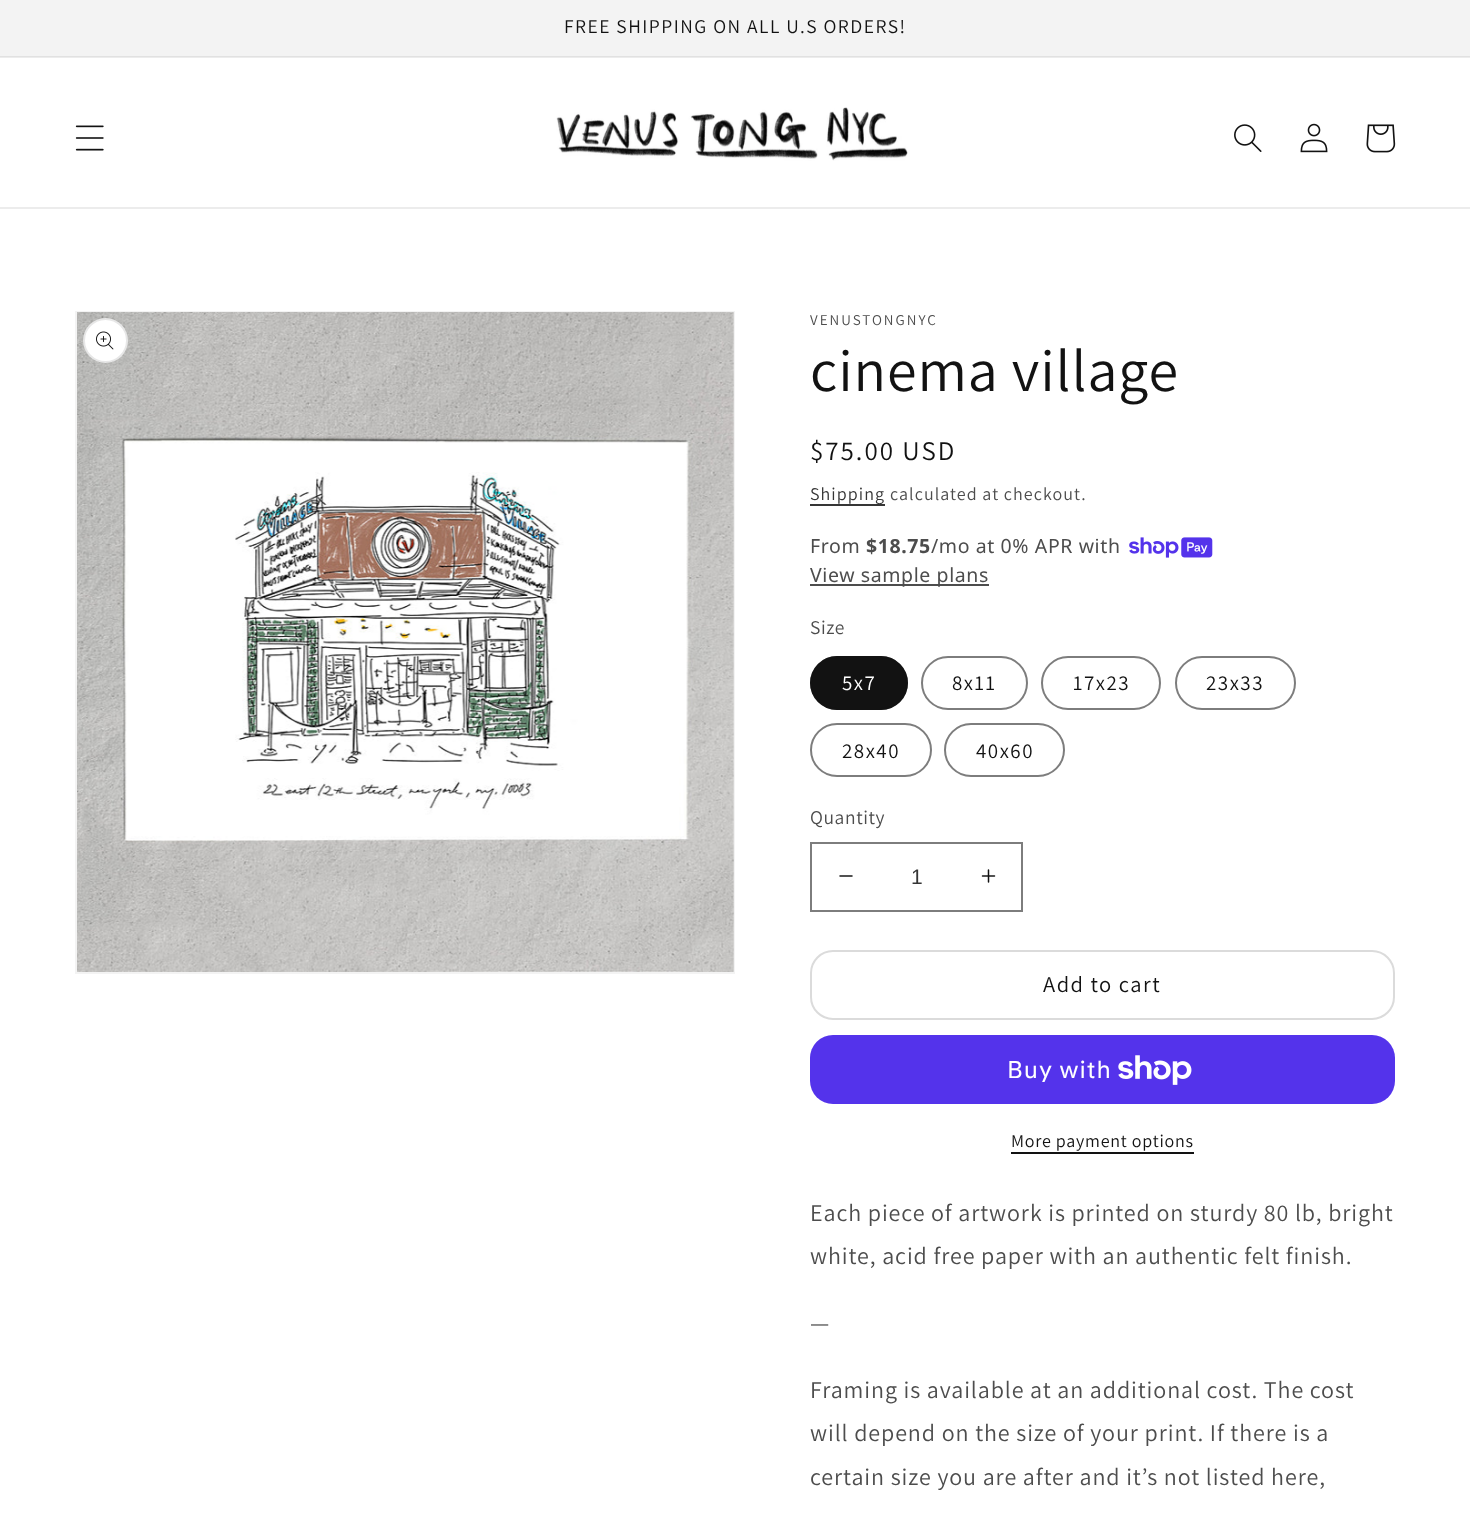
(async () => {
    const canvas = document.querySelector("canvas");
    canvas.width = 1470;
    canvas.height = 1516;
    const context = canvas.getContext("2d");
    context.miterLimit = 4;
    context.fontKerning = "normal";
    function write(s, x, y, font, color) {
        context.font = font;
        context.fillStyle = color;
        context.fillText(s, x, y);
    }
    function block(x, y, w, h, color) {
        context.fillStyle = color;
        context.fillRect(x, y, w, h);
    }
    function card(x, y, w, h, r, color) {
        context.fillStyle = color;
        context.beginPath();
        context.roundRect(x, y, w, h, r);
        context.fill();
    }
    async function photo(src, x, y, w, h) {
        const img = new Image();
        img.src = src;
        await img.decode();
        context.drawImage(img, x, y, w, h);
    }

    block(0, 0, 1470, 1516, "rgb(255, 255, 255)");
    block(0, 57, 1470, 1, "rgb(236, 236, 236)");
    block(0, 0, 1470, 56, "rgb(243, 243, 243)");
    block(0, 56, 1470, 1, "rgb(225, 225, 225)");
    context.letterSpacing = "1.5px";
    write("FREE SHIPPING ON ALL U.S ORDERS!", 564, 33, "19.5px Assistant", "rgb(18, 18, 18)");
    block(0, 207, 1470, 2, "rgb(236, 236, 236)");
    await photo("media/1.png", 75, 125, 29, 26);
    await photo("media/2.png", 556, 107, 352, 54);
    await photo("media/3.png", 1234, 124, 28, 28);
    await photo("media/4.png", 1300, 123, 28, 30);
    await photo("media/5.png", 1366, 124, 30, 29);
    context.strokeStyle = "rgb(243, 243, 243)";
    context.lineWidth = 2;
    context.strokeRect(76, 312, 658, 661);
    await photo("media/6.png", 77, 312, 657, 660);
    context.fillStyle = "rgb(255, 255, 255)";
    context.beginPath();
    context.arc(105.5, 340.5, 22.5, 0, Math.PI * 2);
    context.fill();
    context.beginPath();
    context.arc(105.5, 340.5, 21.5, 0, Math.PI * 2);
    context.strokeStyle = "rgba(18, 18, 18, 0.1)";
    context.stroke();
    await photo("media/7.png", 96, 331, 18, 19);
    context.letterSpacing = "2px";
    write("VENUSTONGNYC", 810, 325, "15px Assistant", "rgb(77, 77, 77)");
    context.letterSpacing = "0.9px";
    write("cinema village", 810, 391, "60px Assistant", "rgb(18, 18, 18)");
    context.letterSpacing = "2px";
    write("$75.00 USD", 810, 460, "27px Assistant", "rgb(18, 18, 18)");
    block(810, 504, 75, 2, "rgb(54, 54, 54)");
    context.letterSpacing = "1.05px";
    write("Shipping", 810, 500, "18px Assistant", "rgb(53, 53, 53)");
    write("calculated at checkout.", 890, 500, "18px Assistant", "rgb(77, 77, 77)");
    context.letterSpacing = "0.6px";
    write("From", 810, 553, "19.5px Noto Sans", "rgb(77, 77, 77)");
    write("$18.75", 866, 553, "bold 19.5px Noto Sans", "rgb(77, 77, 77)");
    write("/mo at 0% APR with", 931, 553, "19.5px Noto Sans", "rgb(77, 77, 77)");
    await photo("media/8.png", 1129, 537, 84, 21);
    block(810, 584, 179, 2, "rgb(77, 77, 77)");
    write("View sample plans", 810, 582, "19.5px Noto Sans", "rgb(77, 77, 77)");
    write("Size", 810, 634, "19.5px Assistant", "rgb(77, 77, 77)");
    card(810, 656, 98, 54, 27, "rgb(18, 18, 18)");
    context.beginPath();
    context.roundRect(811, 657, 96, 52, 26);
    context.strokeStyle = "rgba(18, 18, 18, 0.55)";
    context.stroke();
    context.letterSpacing = "1.5px";
    write("5x7", 842, 690, "21px Assistant", "rgb(255, 255, 255)");
    context.beginPath();
    context.roundRect(922, 657, 105, 52, 26);
    context.strokeStyle = "rgb(125, 125, 125)";
    context.stroke();
    write("8x11", 952, 690, "21px Assistant", "rgb(18, 18, 18)");
    context.beginPath();
    context.roundRect(1042, 657, 118, 52, 26);
    context.stroke();
    write("17x23", 1073, 690, "21px Assistant", "rgb(18, 18, 18)");
    context.beginPath();
    context.roundRect(1176, 657, 119, 52, 26);
    context.stroke();
    write("23x33", 1206, 690, "21px Assistant", "rgb(18, 18, 18)");
    context.beginPath();
    context.roundRect(811, 724, 120, 52, 26);
    context.stroke();
    write("28x40", 842, 758, "21px Assistant", "rgb(18, 18, 18)");
    context.beginPath();
    context.roundRect(945, 724, 119, 52, 26);
    context.stroke();
    write("40x60", 976, 758, "21px Assistant", "rgb(18, 18, 18)");
    context.letterSpacing = "0.6px";
    write("Quantity", 810, 824, "19.5px Assistant", "rgb(77, 77, 77)");
    await photo("media/9.png", 839, 875, 14, 2);
    await photo("media/10.png", 981, 869, 15, 14);
    context.strokeRect(811, 843, 211, 68);
    context.letterSpacing = "0px";
    write("1", 911, 884, "21px Liberation Sans", "rgb(53, 53, 53)");
    context.beginPath();
    context.roundRect(811, 951, 583, 68, 22);
    context.strokeStyle = "rgb(219, 219, 219)";
    context.stroke();
    context.letterSpacing = "1.5px";
    write("Add to cart", 1043, 992, "22.5px Assistant", "rgb(18, 18, 18)");
    card(810, 1035, 585, 69, 23, "rgb(84, 51, 235)");
    context.letterSpacing = "0.9px";
    write("Buy with", 1007, 1078, "24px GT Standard", "rgb(255, 255, 255)");
    await photo("media/11.png", 1118, 1055, 74, 30);
    context.letterSpacing = "0.75px";
    write("More payment options", 1011, 1147, "18px Assistant", "rgb(18, 18, 18)");
    block(1011, 1152, 183, 2, "rgb(18, 18, 18)");
    context.letterSpacing = "0.9px";
    write("Each piece of artwork is printed on sturdy 80 lb, bright", 810, 1221, "24px Assistant", "rgb(77, 77, 77)");
    write("white, acid free paper with an authentic felt finish.", 810, 1264, "24px Assistant", "rgb(77, 77, 77)");
    write("—", 810, 1331, "24px Assistant", "rgb(77, 77, 77)");
    write("Framing is available at an additional cost. The cost", 810, 1398, "24px Assistant", "rgb(77, 77, 77)");
    write("will depend on the size of your print. If there is a", 810, 1441, "24px Assistant", "rgb(77, 77, 77)");
    write("certain size you are after and it’s not listed here,", 810, 1485, "24px Assistant", "rgb(77, 77, 77)");
})();
